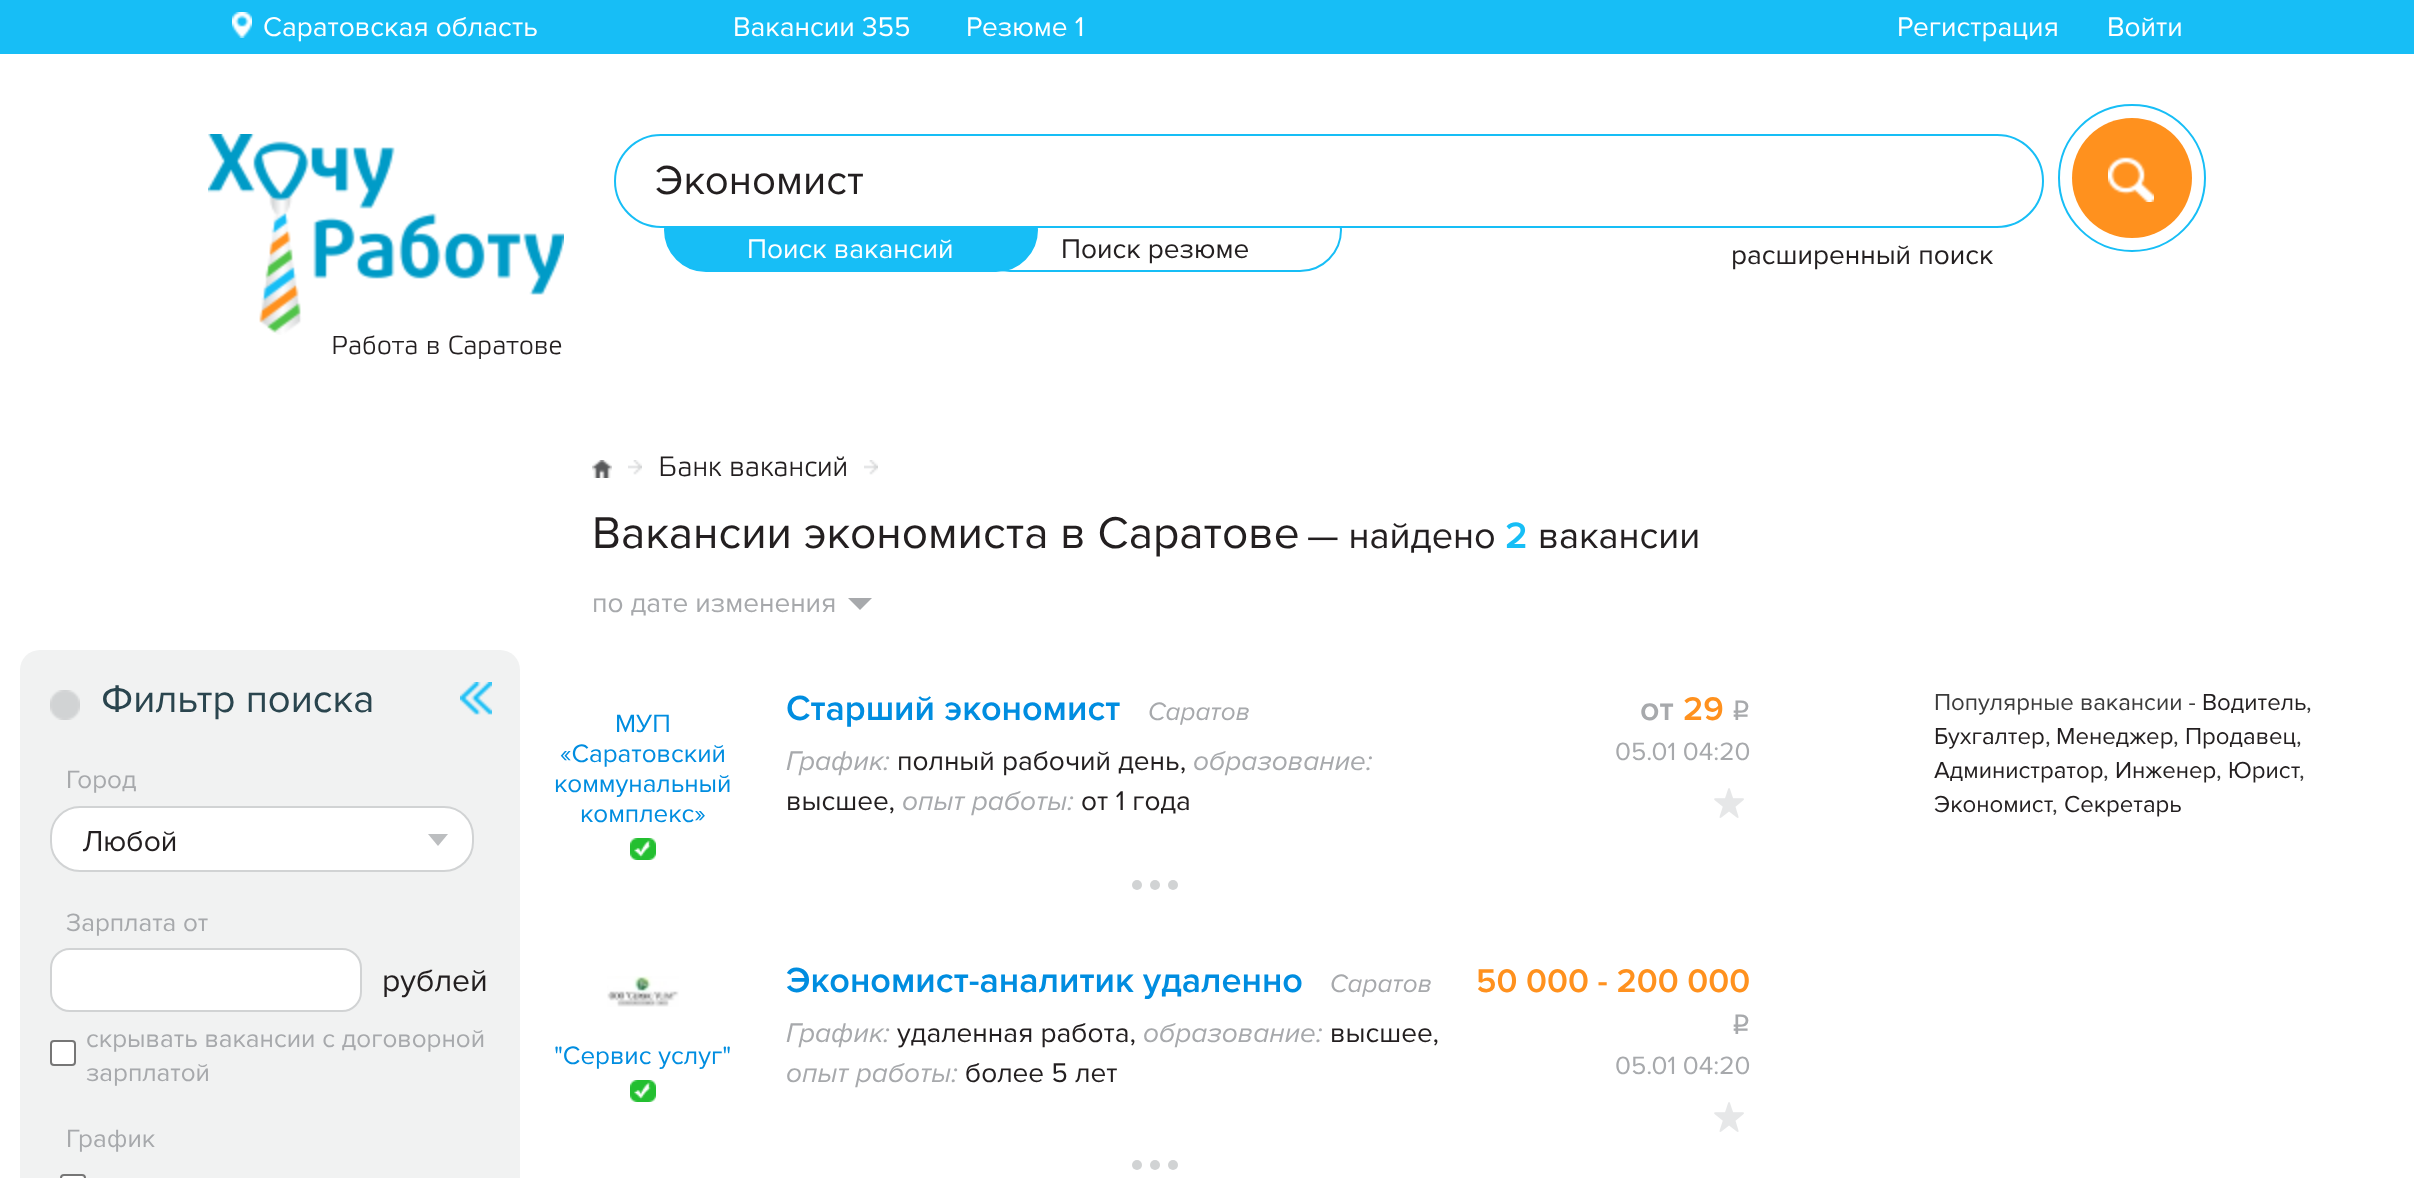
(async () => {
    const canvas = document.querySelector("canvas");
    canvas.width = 2414;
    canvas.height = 1178;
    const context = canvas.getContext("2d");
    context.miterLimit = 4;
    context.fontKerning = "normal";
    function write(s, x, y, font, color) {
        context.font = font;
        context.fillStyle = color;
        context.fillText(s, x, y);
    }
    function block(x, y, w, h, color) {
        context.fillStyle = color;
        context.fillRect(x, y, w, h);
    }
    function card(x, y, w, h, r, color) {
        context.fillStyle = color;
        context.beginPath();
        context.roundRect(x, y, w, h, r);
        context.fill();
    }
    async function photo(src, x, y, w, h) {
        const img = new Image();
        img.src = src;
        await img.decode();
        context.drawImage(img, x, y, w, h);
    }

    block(0, 0, 2414, 1178, "rgb(23, 190, 246)");
    await photo("media/1.png", 232, 12, 20, 26);
    write("Саратовская область", 263, 36, "28px Proxima Nova", "rgb(255, 255, 255)");
    write("Вакансии 355", 733, 36, "28px Proxima Nova", "rgb(255, 255, 255)");
    write("Резюме 1", 966, 36, "28px Proxima Nova", "rgb(255, 255, 255)");
    write("Регистрация", 1897, 36, "28px Proxima Nova", "rgb(255, 255, 255)");
    write("Войти", 2107, 36, "28px Proxima Nova", "rgb(255, 255, 255)");
    block(0, 54, 2414, 1124, "rgb(255, 255, 255)");
    context.beginPath();
    context.roundRect(969, 189, 372, 82, 41);
    context.strokeStyle = "rgb(23, 190, 246)";
    context.lineWidth = 2;
    context.stroke();
    context.fillStyle = "rgb(23, 190, 246)";
    context.beginPath();
    context.roundRect(665, 189, 372, 82, 41);
    context.fill();
    context.stroke();
    context.fillStyle = "rgb(255, 255, 255)";
    context.beginPath();
    context.roundRect(615, 135, 1428, 92, 46);
    context.fill();
    context.stroke();
    write("Экономист", 655, 194, "42px Proxima Nova", "rgb(35, 31, 32)");
    write("Поиск вакансий", 747, 258, "28px Proxima Nova", "rgb(255, 255, 255)");
    write("Поиск резюме", 1061, 258, "28px Proxima Nova", "rgb(35, 31, 32)");
    write("расширенный поиск", 1731, 264, "28px Proxima Nova", "rgb(35, 31, 32)");
    context.beginPath();
    context.arc(2132, 178, 73, 0, Math.PI * 2);
    context.stroke();
    context.fillStyle = "rgb(255, 145, 30)";
    context.beginPath();
    context.arc(2132, 178, 60, 0, Math.PI * 2);
    context.fill();
    await photo("media/2.png", 2108, 157, 46, 45);
    await photo("media/3.png", 208, 134, 356, 201);
    write("Работа в Саратове", 331, 354, "300 26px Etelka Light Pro", "rgb(35, 31, 32)");
    await photo("media/4.png", 592, 460, 20, 18);
    await photo("media/5.png", 628, 460, 14, 15);
    write("Банк вакансий", 658, 476, "300 28px Etelka Light Pro", "rgb(35, 31, 32)");
    await photo("media/5.png", 864, 460, 14, 15);
    write("Вакансии экономиста в Саратове", 592, 548, "46px Proxima Nova", "rgb(35, 31, 32)");
    write("— найдено", 1307, 548, "38px Proxima Nova", "rgb(35, 31, 32)");
    write("2", 1505, 548, "600 38px Proxima Nova", "rgb(23, 190, 246)");
    write("вакансии", 1538, 548, "38px Proxima Nova", "rgb(35, 31, 32)");
    write("по дате изменения", 592, 612, "28px Proxima Nova", "rgb(167, 169, 172)");
    context.beginPath();
    context.moveTo(848, 598);
    context.lineTo(872, 598);
    context.lineTo(860, 610);
    context.closePath();
    context.fill();
    card(20, 650, 500, 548, 20, "rgb(241, 242, 242)");
    await photo("media/6.png", 50, 690, 30, 30);
    write("Фильтр поиска", 101, 712, "40px Proxima Nova", "rgb(42, 69, 78)");
    await photo("media/7.png", 460, 682, 32, 33);
    write("Город", 66, 788, "26px Proxima Nova", "rgb(167, 169, 172)");
    context.fillStyle = "rgb(255, 255, 255)";
    context.beginPath();
    context.roundRect(51, 807, 422, 64, 29);
    context.fill();
    context.strokeStyle = "rgb(209, 211, 212)";
    context.stroke();
    write("Любой", 82, 851, "30px Proxima Nova", "rgb(35, 31, 32)");
    context.fillStyle = "rgb(188, 190, 192)";
    context.beginPath();
    context.moveTo(428, 834);
    context.lineTo(448, 834);
    context.lineTo(438, 846);
    context.closePath();
    context.fill();
    write("Зарплата от", 66, 931, "26px Proxima Nova", "rgb(167, 169, 172)");
    context.fillStyle = "rgb(255, 255, 255)";
    context.beginPath();
    context.roundRect(51, 949, 310, 62, 19);
    context.fill();
    context.stroke();
    write("рублей", 382, 991, "32px Proxima Nova", "rgb(35, 31, 32)");
    context.fillStyle = "rgb(255, 255, 255)";
    context.beginPath();
    context.roundRect(51, 1041, 24, 24, 3);
    context.fill();
    context.strokeStyle = "rgb(118, 118, 118)";
    context.stroke();
    write("скрывать вакансии с договорной", 86, 1047, "26px Proxima Nova", "rgb(167, 169, 172)");
    write("зарплатой", 86, 1081, "26px Proxima Nova", "rgb(167, 169, 172)");
    write("График", 66, 1147, "26px Proxima Nova", "rgb(167, 169, 172)");
    context.fillStyle = "rgb(255, 255, 255)";
    context.beginPath();
    context.roundRect(61, 1175, 24, 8, 3);
    context.fill();
    context.stroke();
    write("МУП", 615, 732, "26px Proxima Nova", "rgb(0, 141, 224)");
    write("«Саратовский", 560, 762, "26px Proxima Nova", "rgb(0, 141, 224)");
    write("коммунальный", 554, 792, "26px Proxima Nova", "rgb(0, 141, 224)");
    write("комплекс»", 580, 822, "26px Proxima Nova", "rgb(0, 141, 224)");
    await photo("media/8.png", 630, 838, 26, 22);
    write("Старший экономист", 786, 720, "600 36px Proxima Nova", "rgb(0, 141, 224)");
    write("Саратов", 1148, 720, "italic 26px Proxima Nova", "rgb(167, 169, 172)");
    write("График:", 786, 770, "italic 28px Proxima Nova", "rgb(167, 169, 172)");
    write("полный рабочий день,", 897, 770, "28px Proxima Nova", "rgb(35, 31, 32)");
    write("образование:", 1193, 770, "italic 28px Proxima Nova", "rgb(167, 169, 172)");
    write("высшее,", 786, 810, "28px Proxima Nova", "rgb(35, 31, 32)");
    write("опыт работы:", 902, 810, "italic 28px Proxima Nova", "rgb(167, 169, 172)");
    write("от 1 года", 1081, 810, "28px Proxima Nova", "rgb(35, 31, 32)");
    write("от", 1640, 720, "600 34px Proxima Nova", "rgb(167, 169, 172)");
    write("29", 1683, 720, "600 34px Proxima Nova", "rgb(255, 145, 30)");
    write("q", 1732, 720, "28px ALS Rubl", "rgb(167, 169, 172)");
    write("05.01 04:20", 1615, 760, "26px Proxima Nova", "rgb(167, 169, 172)");
    await photo("media/9.png", 1714, 788, 30, 30);
    context.fillStyle = "rgb(209, 211, 212)";
    context.beginPath();
    context.arc(1137, 885, 5, 0, Math.PI * 2);
    context.fill();
    context.beginPath();
    context.arc(1155, 885, 5, 0, Math.PI * 2);
    context.fill();
    context.beginPath();
    context.arc(1173, 885, 5, 0, Math.PI * 2);
    context.fill();
    await photo("media/10.png", 607, 976, 72, 31);
    write("\"Сервис услуг\"", 554, 1064, "26px Proxima Nova", "rgb(0, 141, 224)");
    await photo("media/8.png", 630, 1080, 26, 22);
    write("Экономист-аналитик удаленно", 786, 992, "600 36px Proxima Nova", "rgb(0, 141, 224)");
    write("Саратов", 1330, 992, "italic 26px Proxima Nova", "rgb(167, 169, 172)");
    write("График:", 786, 1042, "italic 28px Proxima Nova", "rgb(167, 169, 172)");
    write("удаленная работа,", 897, 1042, "28px Proxima Nova", "rgb(35, 31, 32)");
    write("образование:", 1143, 1042, "italic 28px Proxima Nova", "rgb(167, 169, 172)");
    write("высшее,", 1330, 1042, "28px Proxima Nova", "rgb(35, 31, 32)");
    write("опыт работы:", 786, 1082, "italic 28px Proxima Nova", "rgb(167, 169, 172)");
    write("более 5 лет", 965, 1082, "28px Proxima Nova", "rgb(35, 31, 32)");
    write("50 000 - 200 000", 1476, 992, "600 34px Proxima Nova", "rgb(255, 145, 30)");
    write("q", 1732, 1034, "28px ALS Rubl", "rgb(167, 169, 172)");
    write("05.01 04:20", 1615, 1074, "26px Proxima Nova", "rgb(167, 169, 172)");
    await photo("media/9.png", 1714, 1102, 30, 30);
    context.fillStyle = "rgb(209, 211, 212)";
    context.beginPath();
    context.arc(1137, 1165, 5, 0, Math.PI * 2);
    context.fill();
    context.beginPath();
    context.arc(1155, 1165, 5, 0, Math.PI * 2);
    context.fill();
    context.beginPath();
    context.arc(1173, 1165, 5, 0, Math.PI * 2);
    context.fill();
    write("Популярные вакансии -", 1934, 710, "24px Proxima Nova", "rgb(60, 60, 60)");
    write("Водитель", 2202, 710, "24px Proxima Nova", "rgb(35, 31, 32)");
    write(",", 2306, 710, "24px Proxima Nova", "rgb(60, 60, 60)");
    write("Бухгалтер", 1934, 744, "24px Proxima Nova", "rgb(35, 31, 32)");
    write(",", 2045, 744, "24px Proxima Nova", "rgb(60, 60, 60)");
    write("Менеджер", 2056, 744, "24px Proxima Nova", "rgb(35, 31, 32)");
    write(",", 2173, 744, "24px Proxima Nova", "rgb(60, 60, 60)");
    write("Продавец", 2185, 744, "24px Proxima Nova", "rgb(35, 31, 32)");
    write(",", 2296, 744, "24px Proxima Nova", "rgb(60, 60, 60)");
    write("Администратор", 1934, 778, "24px Proxima Nova", "rgb(35, 31, 32)");
    write(",", 2103, 778, "24px Proxima Nova", "rgb(60, 60, 60)");
    write("Инженер", 2115, 778, "24px Proxima Nova", "rgb(35, 31, 32)");
    write(",", 2216, 778, "24px Proxima Nova", "rgb(60, 60, 60)");
    write("Юрист", 2228, 778, "24px Proxima Nova", "rgb(35, 31, 32)");
    write(",", 2299, 778, "24px Proxima Nova", "rgb(60, 60, 60)");
    write("Экономист", 1934, 812, "24px Proxima Nova", "rgb(35, 31, 32)");
    write(",", 2052, 812, "24px Proxima Nova", "rgb(60, 60, 60)");
    write("Секретарь", 2064, 812, "24px Proxima Nova", "rgb(35, 31, 32)");
})();
